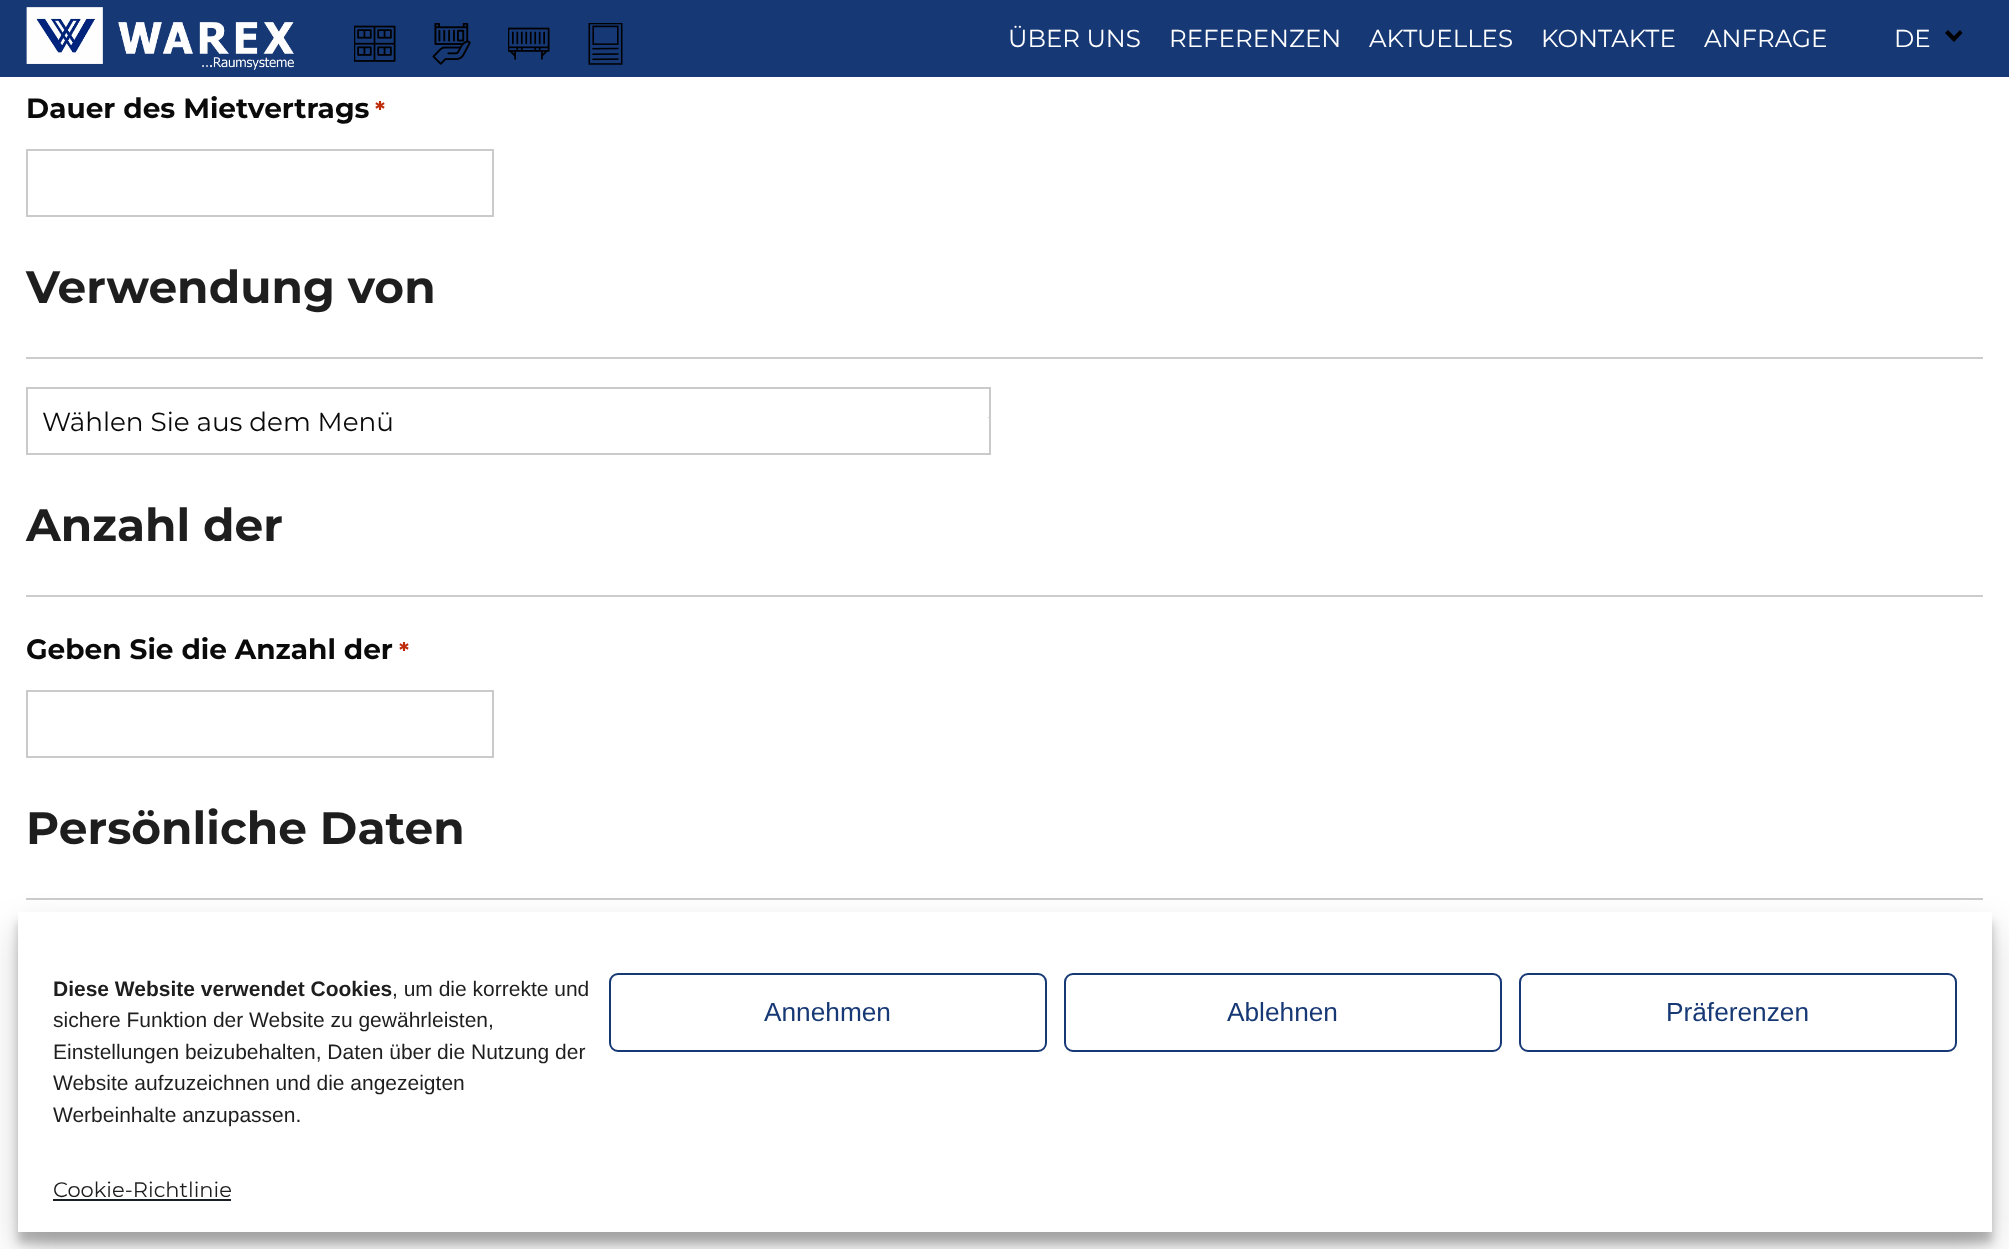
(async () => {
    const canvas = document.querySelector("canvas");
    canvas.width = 2009;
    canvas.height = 1249;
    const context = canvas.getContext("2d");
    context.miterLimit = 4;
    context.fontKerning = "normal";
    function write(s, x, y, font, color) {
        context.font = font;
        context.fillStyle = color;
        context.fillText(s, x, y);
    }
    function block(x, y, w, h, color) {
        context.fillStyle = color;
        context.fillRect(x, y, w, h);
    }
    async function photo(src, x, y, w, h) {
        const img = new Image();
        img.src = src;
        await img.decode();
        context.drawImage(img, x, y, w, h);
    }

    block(0, 0, 2009, 1249, "rgb(255, 255, 255)");
    block(0, 0, 2009, 77, "rgb(22, 56, 117)");
    await photo("media/1.png", 26, 7, 268, 63);
    await photo("media/2.png", 354, 25, 42, 37);
    await photo("media/3.png", 432, 23, 39, 42);
    await photo("media/4.png", 508, 27, 42, 33);
    await photo("media/5.png", 588, 23, 35, 42);
    write("ÜBER UNS", 1008, 47, "24.5px Montserrat", "rgb(255, 255, 255)");
    write("REFERENZEN", 1169, 47, "24.5px Montserrat", "rgb(255, 255, 255)");
    write("AKTUELLES", 1369, 47, "24.5px Montserrat", "rgb(255, 255, 255)");
    write("KONTAKTE", 1541, 47, "24.5px Montserrat", "rgb(255, 255, 255)");
    write("ANFRAGE", 1704, 47, "24.5px Montserrat", "rgb(255, 255, 255)");
    write("DE", 1894, 47, "24.5px Montserrat", "rgb(255, 255, 255)");
    context.fillStyle = "rgb(0, 0, 0)";
    context.beginPath();
    context.moveTo(1945, 33);
    context.lineTo(1954, 42);
    context.lineTo(1962.5, 33);
    context.lineTo(1960, 30);
    context.lineTo(1954, 36);
    context.lineTo(1948, 30);
    context.closePath();
    context.fill();
    write("Dauer des Mietvertrags", 26, 118, "bold 28px Montserrat", "rgb(10, 10, 10)");
    write("*", 375, 118, "bold 23px Montserrat", "rgb(192, 43, 10)");
    context.strokeStyle = "rgb(202, 202, 202)";
    context.lineWidth = 2;
    context.strokeRect(27, 150, 466, 66);
    block(26, 357, 1957, 2, "rgb(204, 204, 204)");
    write("Verwendung von", 26, 303, "bold 45.5px Montserrat", "rgb(30, 30, 30)");
    context.save();
    context.beginPath();
    context.rect(987, 417, 4, 10);
    context.clip();
    context.fillStyle = "rgb(138, 138, 138)";
    context.beginPath();
    context.moveTo(988, 416.5);
    context.lineTo(1002, 416.5);
    context.lineTo(995, 427);
    context.closePath();
    context.fill();
    context.restore();
    context.strokeRect(27, 388, 963, 66);
    write("Wählen Sie aus dem Menü", 42, 431, "26.25px Montserrat", "rgb(10, 10, 10)");
    block(26, 595, 1957, 2, "rgb(204, 204, 204)");
    write("Anzahl der", 26, 541, "bold 45.5px Montserrat", "rgb(30, 30, 30)");
    write("Geben Sie die Anzahl der", 26, 659, "bold 28px Montserrat", "rgb(10, 10, 10)");
    write("*", 399, 659, "bold 23px Montserrat", "rgb(192, 43, 10)");
    context.strokeRect(27, 691, 466, 66);
    block(26, 898, 1957, 2, "rgb(204, 204, 204)");
    write("Persönliche Daten", 26, 844, "bold 45.5px Montserrat", "rgb(30, 30, 30)");
    context.fillStyle = "rgba(0, 0, 0, 0.23)";
    context.filter = "blur(5px)";
    context.beginPath();
    context.rect(18, 922, 1974, 321);
    context.fill();
    context.filter = "none";
    context.fillStyle = "rgba(0, 0, 0, 0.19)";
    context.filter = "blur(17.5px)";
    context.beginPath();
    context.rect(18, 929, 1974, 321);
    context.fill();
    context.filter = "none";
    block(18, 912, 1974, 320, "rgb(255, 255, 255)");
    write("Diese Website verwendet Cookies", 53, 996, "bold 21px Liberation Sans", "rgb(30, 30, 30)");
    write(", um die korrekte und", 392, 996, "21px Liberation Sans", "rgb(30, 30, 30)");
    write("sichere Funktion der Website zu gewährleisten,", 53, 1027, "21px Liberation Sans", "rgb(30, 30, 30)");
    write("Einstellungen beizubehalten, Daten über die Nutzung der", 53, 1059, "21px Liberation Sans", "rgb(30, 30, 30)");
    write("Website aufzuzeichnen und die angezeigten", 53, 1090, "21px Liberation Sans", "rgb(30, 30, 30)");
    write("Werbeinhalte anzupassen.", 53, 1122, "21px Liberation Sans", "rgb(30, 30, 30)");
    context.beginPath();
    context.roundRect(610, 974, 436, 77, 8);
    context.strokeStyle = "rgb(22, 56, 117)";
    context.stroke();
    write("Annehmen", 764, 1021, "26.25px Liberation Sans", "rgb(22, 56, 117)");
    context.beginPath();
    context.roundRect(1065, 974, 436, 77, 8);
    context.stroke();
    write("Ablehnen", 1227, 1021, "26.25px Liberation Sans", "rgb(22, 56, 117)");
    context.beginPath();
    context.roundRect(1520, 974, 436, 77, 8);
    context.stroke();
    write("Präferenzen", 1666, 1021, "26.25px Liberation Sans", "rgb(22, 56, 117)");
    write("Cookie-Richtlinie", 53, 1197, "21px Montserrat", "rgb(30, 30, 30)");
    block(53, 1199, 178, 2, "rgb(25, 30, 35)");
})();
